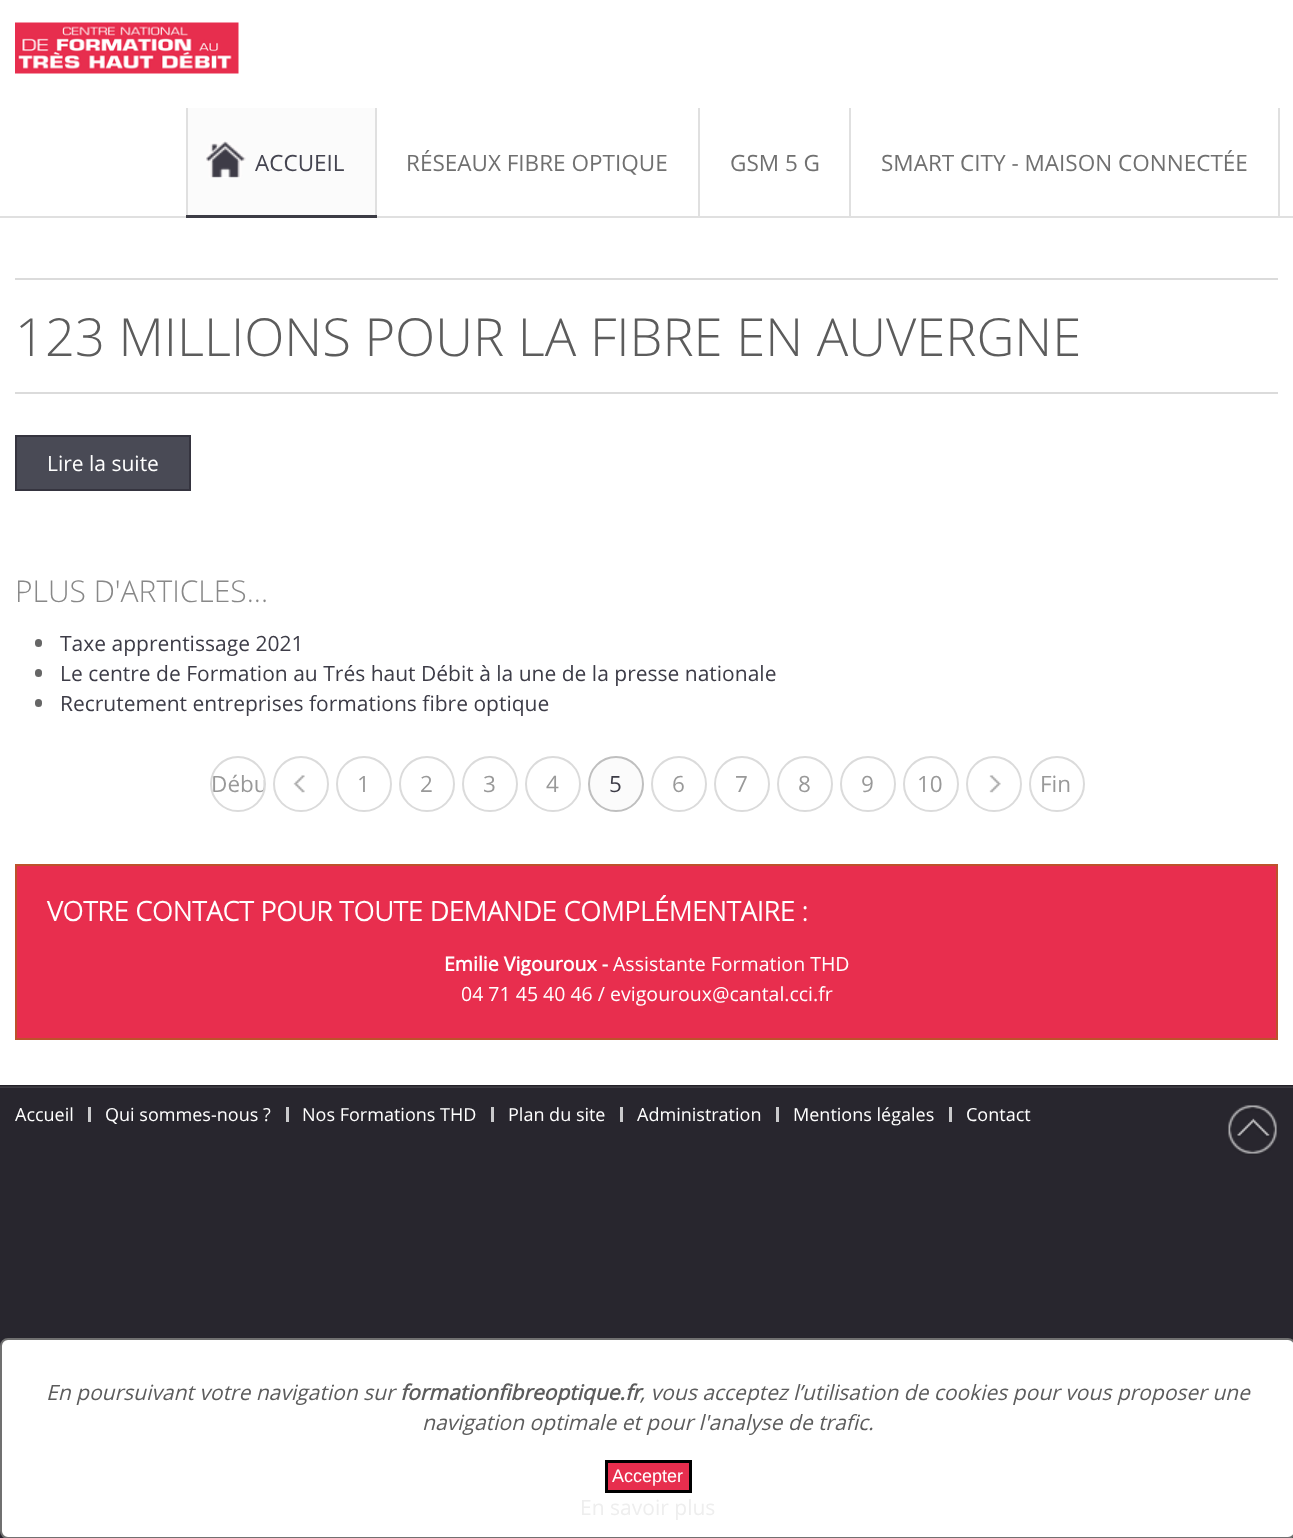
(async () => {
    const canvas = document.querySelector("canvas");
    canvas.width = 1293;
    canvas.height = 1538;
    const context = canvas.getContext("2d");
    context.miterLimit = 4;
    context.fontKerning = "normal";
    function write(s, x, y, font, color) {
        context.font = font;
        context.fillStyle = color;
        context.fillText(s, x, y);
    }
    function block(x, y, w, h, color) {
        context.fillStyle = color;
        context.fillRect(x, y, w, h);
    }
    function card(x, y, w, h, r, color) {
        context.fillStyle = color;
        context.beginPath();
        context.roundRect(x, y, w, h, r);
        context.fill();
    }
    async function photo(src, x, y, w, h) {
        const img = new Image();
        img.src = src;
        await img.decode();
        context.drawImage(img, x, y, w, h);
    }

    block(0, 0, 1293, 1538, "rgb(40, 38, 46)");
    block(0, 1085, 1293, 1, "rgb(34, 32, 39)");
    block(0, 0, 1293, 216, "rgb(255, 255, 255)");
    block(0, 216, 1293, 2, "rgb(224, 224, 224)");
    await photo("media/1.png", 15, 22, 224, 52);
    block(188, 108, 187, 107, "rgb(251, 251, 251)");
    block(375, 108, 2, 110, "rgb(224, 224, 224)");
    block(186, 108, 2, 110, "rgb(224, 224, 224)");
    await photo("media/2.png", 206, 141, 40, 37);
    write("ACCUEIL", 255, 171, "22.5px Open Sans", "rgb(68, 68, 80)");
    block(186, 215, 191, 3, "rgb(60, 60, 69)");
    block(698, 108, 2, 110, "rgb(224, 224, 224)");
    write("RÉSEAUX FIBRE OPTIQUE", 406, 171, "22.5px Open Sans", "rgb(112, 112, 112)");
    block(849, 108, 2, 110, "rgb(224, 224, 224)");
    write("GSM 5 G", 730, 171, "22.5px Open Sans", "rgb(112, 112, 112)");
    block(1278, 108, 2, 110, "rgb(224, 224, 224)");
    write("SMART CITY - MAISON CONNECTÉE", 881, 171, "22.5px Open Sans", "rgb(112, 112, 112)");
    block(0, 218, 1293, 867, "rgb(255, 255, 255)");
    block(15, 278, 1263, 2, "rgb(219, 219, 219)");
    block(15, 392, 1263, 2, "rgb(219, 219, 219)");
    write("123 MILLIONS POUR LA FIBRE EN AUVERGNE", 15, 356, "300 52.5px Open Sans", "rgb(92, 92, 92)");
    context.fillStyle = "rgb(73, 74, 85)";
    context.beginPath();
    context.rect(16, 436, 174, 54);
    context.fill();
    context.strokeStyle = "rgb(53, 52, 63)";
    context.lineWidth = 2;
    context.stroke();
    write("Lire la suite", 47, 471, "21px Open Sans", "rgb(255, 255, 255)");
    write("PLUS D'ARTICLES...", 15, 602, "300 30px Open Sans", "rgb(136, 136, 136)");
    card(35, 639, 7, 8, 3.5, "rgb(102, 102, 102)");
    write("Taxe apprentissage 2021", 60, 651, "21px Open Sans", "rgb(61, 60, 71)");
    card(35, 669, 7, 8, 3.5, "rgb(102, 102, 102)");
    write("Le centre de Formation au Trés haut Débit à la une de la presse nationale", 60, 681, "21px Open Sans", "rgb(61, 60, 71)");
    card(35, 699, 7, 8, 3.5, "rgb(102, 102, 102)");
    write("Recrutement entreprises formations fibre optique", 60, 711, "21px Open Sans", "rgb(61, 60, 71)");
    context.beginPath();
    context.arc(238, 784, 27, 0, Math.PI * 2);
    context.strokeStyle = "rgb(219, 219, 219)";
    context.stroke();
    context.save();
    context.beginPath();
    context.roundRect(212, 758, 52, 52, 26);
    context.clip();
    write("Débu", 211, 792, "22.5px Open Sans", "rgb(153, 153, 153)");
    context.restore();
    await photo("media/3.png", 293, 775, 12, 18);
    context.beginPath();
    context.arc(301, 784, 27, 0, Math.PI * 2);
    context.stroke();
    context.beginPath();
    context.arc(364, 784, 27, 0, Math.PI * 2);
    context.stroke();
    write("1", 357, 792, "22.5px Open Sans", "rgb(153, 153, 153)");
    context.beginPath();
    context.arc(427, 784, 27, 0, Math.PI * 2);
    context.stroke();
    write("2", 420, 792, "22.5px Open Sans", "rgb(153, 153, 153)");
    context.beginPath();
    context.arc(490, 784, 27, 0, Math.PI * 2);
    context.stroke();
    write("3", 483, 792, "22.5px Open Sans", "rgb(153, 153, 153)");
    context.beginPath();
    context.arc(553, 784, 27, 0, Math.PI * 2);
    context.stroke();
    write("4", 546, 792, "22.5px Open Sans", "rgb(153, 153, 153)");
    context.fillStyle = "rgb(251, 251, 251)";
    context.beginPath();
    context.arc(616, 784, 27, 0, Math.PI * 2);
    context.fill();
    context.strokeStyle = "rgb(191, 191, 191)";
    context.stroke();
    write("5", 609, 792, "22.5px Open Sans", "rgb(61, 60, 71)");
    context.beginPath();
    context.arc(679, 784, 27, 0, Math.PI * 2);
    context.strokeStyle = "rgb(219, 219, 219)";
    context.stroke();
    write("6", 672, 792, "22.5px Open Sans", "rgb(153, 153, 153)");
    context.beginPath();
    context.arc(742, 784, 27, 0, Math.PI * 2);
    context.stroke();
    write("7", 735, 792, "22.5px Open Sans", "rgb(153, 153, 153)");
    context.beginPath();
    context.arc(805, 784, 27, 0, Math.PI * 2);
    context.stroke();
    write("8", 798, 792, "22.5px Open Sans", "rgb(153, 153, 153)");
    context.beginPath();
    context.arc(868, 784, 27, 0, Math.PI * 2);
    context.stroke();
    write("9", 861, 792, "22.5px Open Sans", "rgb(153, 153, 153)");
    context.beginPath();
    context.arc(931, 784, 27, 0, Math.PI * 2);
    context.stroke();
    write("10", 917, 792, "22.5px Open Sans", "rgb(153, 153, 153)");
    await photo("media/4.png", 989, 775, 12, 18);
    context.beginPath();
    context.arc(994, 784, 27, 0, Math.PI * 2);
    context.stroke();
    context.beginPath();
    context.arc(1057, 784, 27, 0, Math.PI * 2);
    context.stroke();
    write("Fin", 1040, 792, "22.5px Open Sans", "rgb(153, 153, 153)");
    context.fillStyle = "rgb(232, 46, 78)";
    context.beginPath();
    context.rect(16, 865, 1261, 174);
    context.fill();
    context.strokeStyle = "rgb(189, 82, 44)";
    context.stroke();
    write("VOTRE CONTACT POUR TOUTE DEMANDE COMPLÉMENTAIRE :", 47, 921, "bold 27px Open Sans", "rgb(255, 255, 255)");
    write("Emilie Vigouroux -", 444, 971, "bold 19.5px 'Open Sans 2'", "rgb(255, 255, 255)");
    write("Assistante Formation THD", 613, 971, "19.5px Open Sans", "rgb(255, 255, 255)");
    write("04 71 45 40 46 / evigouroux@cantal.cci.fr", 461, 1001, "19.5px Open Sans", "rgb(255, 255, 255)");
    block(0, 1087, 1293, 1, "rgb(62, 60, 67)");
    block(0, 1086, 1293, 1, "rgb(53, 51, 57)");
    write("Accueil", 15, 1121, "18px Open Sans", "rgb(255, 255, 255)");
    block(88, 1107, 3, 15, "rgb(201, 201, 203)");
    write("Qui sommes-nous ?", 105, 1121, "18px Open Sans", "rgb(255, 255, 255)");
    block(286, 1107, 3, 15, "rgb(201, 201, 203)");
    write("Nos Formations THD", 302, 1121, "18px Open Sans", "rgb(255, 255, 255)");
    block(491, 1107, 3, 15, "rgb(201, 201, 203)");
    write("Plan du site", 508, 1121, "18px Open Sans", "rgb(255, 255, 255)");
    block(620, 1107, 3, 15, "rgb(201, 201, 203)");
    write("Administration", 637, 1121, "18px Open Sans", "rgb(255, 255, 255)");
    block(776, 1107, 3, 15, "rgb(201, 201, 203)");
    write("Mentions légales", 793, 1121, "18px Open Sans", "rgb(255, 255, 255)");
    block(949, 1107, 3, 15, "rgb(201, 201, 203)");
    write("Contact", 966, 1121, "18px Open Sans", "rgb(255, 255, 255)");
    await photo("media/5.png", 1228, 1105, 49, 50);
    context.beginPath();
    context.roundRect(1, 1339, 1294, 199, 7);
    context.fill();
    context.strokeStyle = "rgb(112, 112, 112)";
    context.stroke();
    write("En poursuivant votre navigation sur", 46, 1400, "italic 21px Open Sans", "rgb(92, 92, 92)");
    write("formationfibreoptique.fr", 400, 1400, "italic bold 21px Open Sans", "rgb(92, 92, 92)");
    write(", vous acceptez l’utilisation de cookies pour vous proposer une", 640, 1400, "italic 21px Open Sans", "rgb(92, 92, 92)");
    write("navigation optimale et pour l'analyse de trafic.", 422, 1430, "italic 21px Open Sans", "rgb(92, 92, 92)");
    context.fillStyle = "rgb(231, 46, 78)";
    context.beginPath();
    context.rect(606.5, 1461.5, 84, 30);
    context.fill();
    context.strokeStyle = "rgb(0, 0, 0)";
    context.lineWidth = 3;
    context.stroke();
    write("Accepter", 612, 1482, "18px Liberation Sans", "rgb(255, 255, 255)");
    write("En savoir plus", 580, 1515, "21px Open Sans", "rgb(238, 238, 238)");
})();
